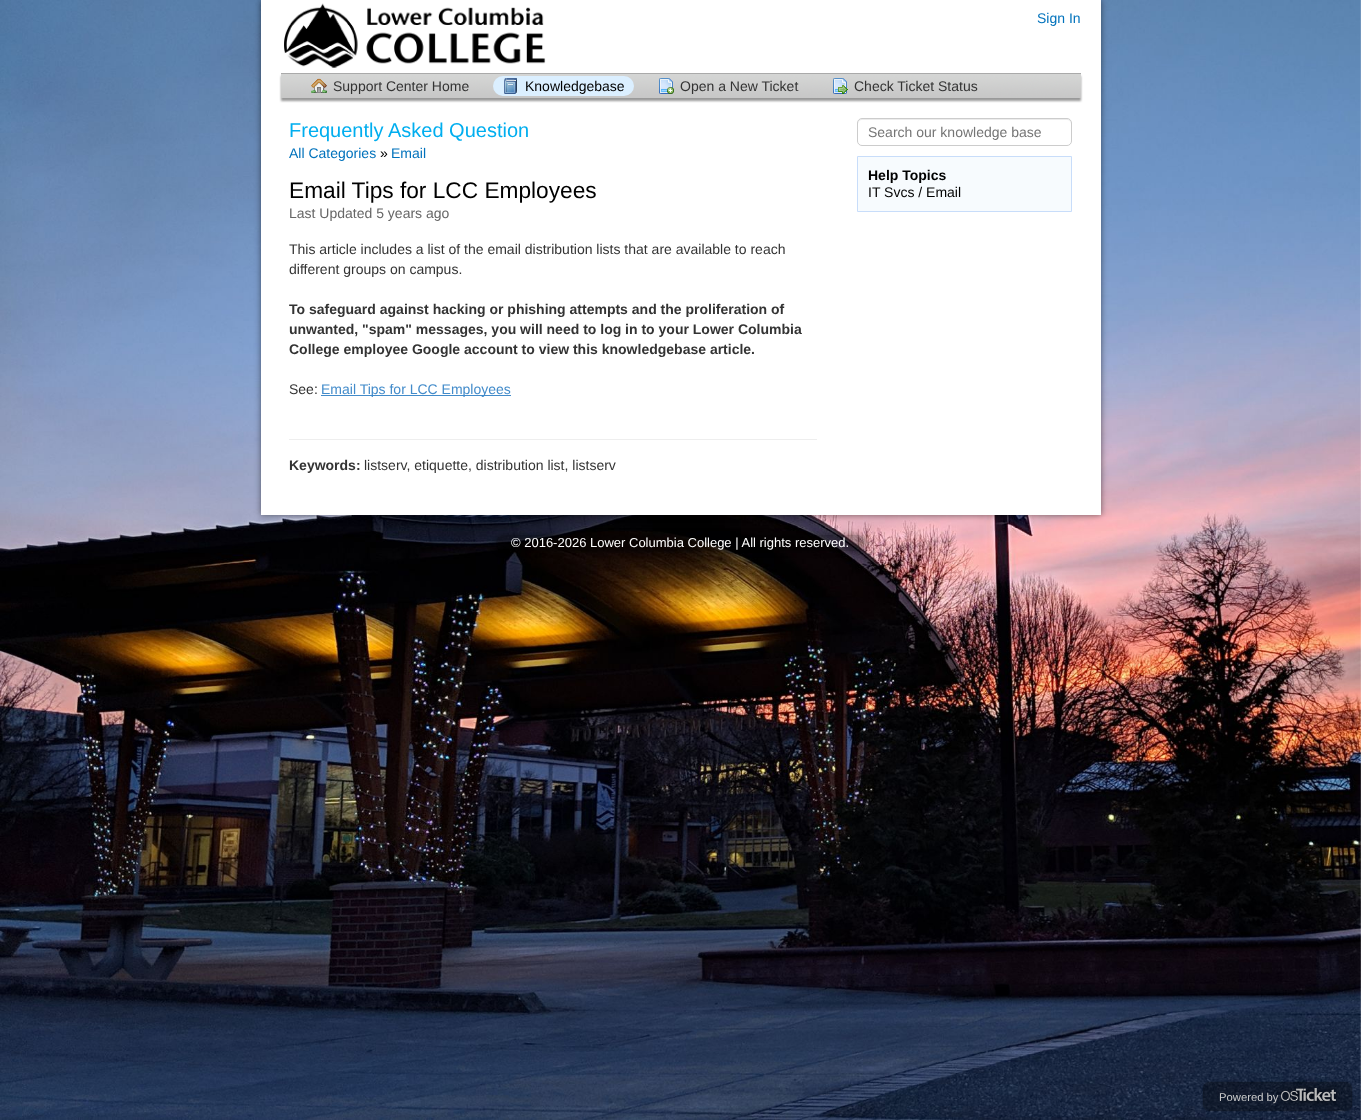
(async () => {
    const canvas = document.querySelector("canvas");
    canvas.width = 1361;
    canvas.height = 1120;
    const context = canvas.getContext("2d");
    context.miterLimit = 4;
    context.fontKerning = "normal";
    function write(s, x, y, font, color) {
        context.font = font;
        context.fillStyle = color;
        context.fillText(s, x, y);
    }
    function block(x, y, w, h, color) {
        context.fillStyle = color;
        context.fillRect(x, y, w, h);
    }
    function card(x, y, w, h, r, color) {
        context.fillStyle = color;
        context.beginPath();
        context.roundRect(x, y, w, h, r);
        context.fill();
    }
    async function photo(src, x, y, w, h) {
        const img = new Image();
        img.src = src;
        await img.decode();
        context.drawImage(img, x, y, w, h);
    }

    block(0, 0, 1361, 1120, "rgb(255, 255, 255)");
    await photo("media/1.png", 0, 0, 1361, 1120);
    context.fillStyle = "rgba(0, 0, 0, 0.5)";
    context.filter = "blur(3px)";
    context.beginPath();
    context.rect(261, 0, 840, 515);
    context.fill();
    context.filter = "none";
    block(261, 0, 840, 515, "rgb(255, 255, 255)");
    await photo("media/2.png", 284, 3, 262, 65);
    write("Sign In", 1037, 23, "14px Liberation Sans", "rgb(0, 114, 188)");
    context.fillStyle = "rgba(0, 0, 0, 0.4)";
    context.filter = "blur(1px)";
    context.beginPath();
    context.rect(281, 76, 800, 25);
    context.fill();
    context.filter = "none";
    await photo("media/3.png", 281, 74, 800, 24);
    block(281, 73, 800, 1, "rgb(170, 170, 170)");
    await photo("media/4.png", 311, 78, 16, 15);
    write("Support Center Home", 333, 91, "14px Liberation Sans", "rgb(51, 51, 51)");
    card(493, 76, 141, 20, 10, "rgb(219, 239, 255)");
    await photo("media/5.png", 504, 78, 13, 16);
    write("Knowledgebase", 525, 91, "14px Liberation Sans", "rgb(0, 0, 0)");
    await photo("media/6.png", 659, 78, 15, 16);
    write("Open a New Ticket", 680, 91, "14px Liberation Sans", "rgb(51, 51, 51)");
    await photo("media/7.png", 833, 78, 15, 16);
    write("Check Ticket Status", 854, 91, "14px Liberation Sans", "rgb(51, 51, 51)");
    write("Frequently Asked Question", 289, 137, "20px Liberation Sans", "rgb(0, 174, 239)");
    write("All Categories", 289, 158, "14px Liberation Sans", "rgb(0, 114, 188)");
    write("»", 380, 158, "14px Liberation Sans", "rgb(0, 0, 0)");
    write("Email", 391, 158, "14px Liberation Sans", "rgb(0, 114, 188)");
    write("Email Tips for LCC Employees", 289, 198, "22.7px Liberation Sans", "rgb(0, 0, 0)");
    write("Last Updated 5 years ago", 289, 218, "14px Liberation Sans", "rgb(102, 102, 102)");
    write("This article includes a list of the email distribution lists that are available to reach", 289, 254, "14px Liberation Sans", "rgb(51, 51, 51)");
    write("different groups on campus.", 289, 274, "14px Liberation Sans", "rgb(51, 51, 51)");
    write("To safeguard against hacking or phishing attempts and the proliferation of", 289, 314, "bold 14px Liberation Sans", "rgb(51, 51, 51)");
    write("unwanted, \"spam\" messages, you will need to log in to your Lower Columbia", 289, 334, "bold 14px Liberation Sans", "rgb(51, 51, 51)");
    write("College employee Google account to view this knowledgebase article.", 289, 354, "bold 14px Liberation Sans", "rgb(51, 51, 51)");
    write("See:", 289, 394, "14px Liberation Sans", "rgb(51, 51, 51)");
    block(321, 395, 190, 1, "rgb(66, 139, 202)");
    write("Email Tips for LCC Employees", 321, 394, "14px Liberation Sans", "rgb(66, 139, 202)");
    block(289, 439, 528, 1, "rgb(238, 238, 238)");
    write("Keywords:", 289, 470, "bold 14px Liberation Sans", "rgb(51, 51, 51)");
    write("listserv, etiquette, distribution list, listserv", 364, 470, "14px Liberation Sans", "rgb(51, 51, 51)");
    context.fillStyle = "rgb(236, 236, 236)";
    context.beginPath();
    context.moveTo(862, 120);
    context.lineTo(1067, 120);
    context.bezierCurveTo(1069, 120, 1071, 122, 1071, 124);
    context.lineTo(1071, 123);
    context.bezierCurveTo(1071, 121, 1069, 119, 1067, 119);
    context.lineTo(862, 119);
    context.bezierCurveTo(860, 119, 858, 121, 858, 123);
    context.lineTo(858, 124);
    context.bezierCurveTo(858, 122, 860, 120, 862, 120);
    context.closePath();
    context.fill();
    context.beginPath();
    context.roundRect(857.5, 118.5, 214, 27, 4.5);
    context.strokeStyle = "rgb(204, 204, 204)";
    context.stroke();
    write("Search our knowledge base", 868, 137, "14px Liberation Sans", "rgb(117, 117, 117)");
    context.fillStyle = "rgb(247, 251, 254)";
    context.beginPath();
    context.rect(857.5, 156.5, 214, 55);
    context.fill();
    context.strokeStyle = "rgb(200, 221, 250)";
    context.stroke();
    write("Help Topics", 868, 180, "bold 14px Liberation Sans", "rgb(0, 0, 0)");
    write("IT Svcs / Email", 868, 197, "14px Liberation Sans", "rgb(0, 0, 0)");
    context.save();
    context.beginPath();
    context.moveTo(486, 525);
    context.lineTo(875, 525);
    context.lineTo(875, 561);
    context.lineTo(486, 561);
    context.closePath();
    context.moveTo(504, 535);
    context.lineTo(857, 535);
    context.bezierCurveTo(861.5, 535, 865, 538.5, 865, 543);
    context.bezierCurveTo(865, 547.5, 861.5, 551, 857, 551);
    context.lineTo(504, 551);
    context.bezierCurveTo(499.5, 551, 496, 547.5, 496, 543);
    context.bezierCurveTo(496, 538.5, 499.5, 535, 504, 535);
    context.closePath();
    context.clip("evenodd");
    context.fillStyle = "rgba(0, 0, 0, 0.4)";
    context.filter = "blur(3px)";
    context.beginPath();
    context.roundRect(496, 535, 369, 16, 8);
    context.fill();
    context.filter = "none";
    context.restore();
    card(496, 535, 369, 16, 8, "rgba(0, 0, 0, 0.3)");
    write("© 2016-2026 Lower Columbia College | All rights reserved.", 511, 547, "13px Liberation Sans", "rgb(255, 255, 255)");
    context.save();
    context.beginPath();
    context.moveTo(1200, 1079);
    context.lineTo(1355, 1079);
    context.lineTo(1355, 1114);
    context.lineTo(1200, 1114);
    context.closePath();
    context.moveTo(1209, 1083);
    context.lineTo(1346, 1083);
    context.bezierCurveTo(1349, 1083, 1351, 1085, 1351, 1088);
    context.lineTo(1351, 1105);
    context.bezierCurveTo(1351, 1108, 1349, 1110, 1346, 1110);
    context.lineTo(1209, 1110);
    context.bezierCurveTo(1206, 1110, 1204, 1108, 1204, 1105);
    context.lineTo(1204, 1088);
    context.bezierCurveTo(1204, 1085, 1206, 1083, 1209, 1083);
    context.closePath();
    context.clip("evenodd");
    context.fillStyle = "rgb(0, 0, 0)";
    context.filter = "blur(1px)";
    context.beginPath();
    context.roundRect(1204, 1083, 147, 27, 5);
    context.fill();
    context.filter = "none";
    context.restore();
    card(1204, 1083, 147, 27, 5, "rgba(0, 0, 0, 0.3)");
    write("Powered by", 1219, 1101, "11.25px Liberation Sans", "rgb(204, 204, 204)");
    await photo("media/8.png", 1276, 1085, 64, 21);
})();
